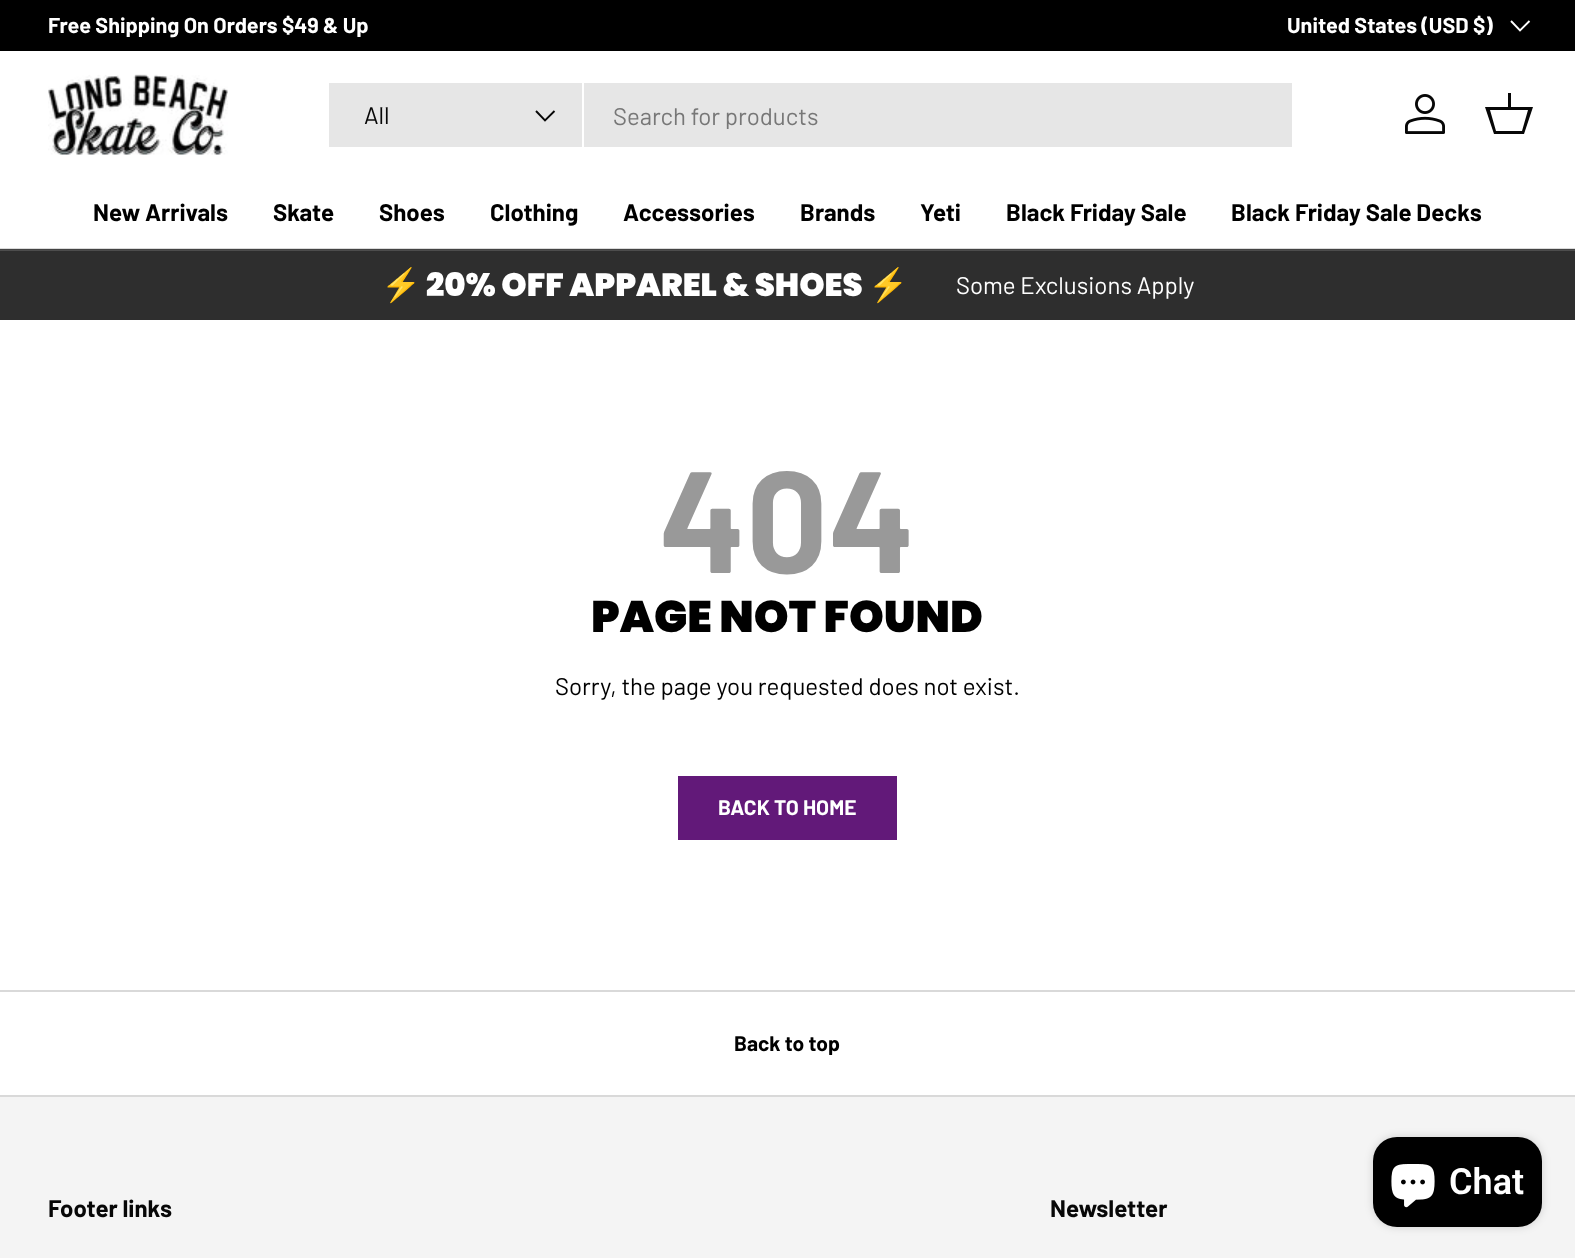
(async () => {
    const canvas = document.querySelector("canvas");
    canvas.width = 1575;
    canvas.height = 1258;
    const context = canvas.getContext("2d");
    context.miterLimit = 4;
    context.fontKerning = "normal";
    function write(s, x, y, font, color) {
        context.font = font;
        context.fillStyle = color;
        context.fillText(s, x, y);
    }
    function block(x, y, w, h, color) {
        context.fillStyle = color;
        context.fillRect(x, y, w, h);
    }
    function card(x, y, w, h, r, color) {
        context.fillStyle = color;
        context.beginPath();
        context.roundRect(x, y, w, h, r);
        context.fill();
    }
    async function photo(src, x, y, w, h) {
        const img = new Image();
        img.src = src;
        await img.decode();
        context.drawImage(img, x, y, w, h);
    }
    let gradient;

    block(0, 0, 1575, 1258, "rgb(255, 255, 255)");
    block(0, 248, 1575, 1, "rgb(218, 218, 218)");
    block(0, 0, 1575, 51, "rgb(0, 0, 0)");
    write("Free Shipping On Orders $49 & Up", 48, 33, "bold 21.6px Barlow", "rgb(255, 255, 255)");
    write("United States (USD $)", 1287, 33, "bold 21.6px Barlow", "rgb(255, 255, 255)");
    context.beginPath();
    context.moveTo(1529.5, 21);
    context.lineTo(1520, 30.5);
    context.lineTo(1511, 21);
    context.strokeStyle = "rgb(255, 255, 255)";
    context.lineWidth = 1.9;
    context.stroke();
    await photo("media/1.png", 48, 74, 180, 81);
    block(329, 83, 963, 64, "rgb(230, 230, 230)");
    block(582, 83, 2, 64, "rgb(255, 255, 255)");
    write("All", 364, 124, "24px Barlow", "rgb(7, 7, 7)");
    context.beginPath();
    context.moveTo(554.5, 111);
    context.lineTo(545, 120.5);
    context.lineTo(536, 111);
    context.strokeStyle = "rgb(7, 7, 7)";
    context.stroke();
    context.save();
    context.beginPath();
    context.rect(614, 101, 657, 28);
    context.clip();
    write("Search for products", 613, 125, "24px Barlow", "rgb(119, 119, 119)");
    context.restore();
    await photo("media/2.png", 1405, 94, 40, 40);
    context.beginPath();
    context.moveTo(1508, 107);
    context.lineTo(1508, 93);
    context.lineTo(1511, 93);
    context.lineTo(1511, 107);
    context.lineTo(1533, 107);
    context.lineTo(1524, 134);
    context.lineTo(1494, 134);
    context.lineTo(1485, 107);
    context.closePath();
    context.moveTo(1490, 110);
    context.lineTo(1496, 131);
    context.lineTo(1522, 131);
    context.lineTo(1528, 110);
    context.closePath();
    context.fill();
    write("New Arrivals", 93, 221, "bold 24px Barlow", "rgb(0, 0, 0)");
    write("Skate", 273, 221, "bold 24px Barlow", "rgb(0, 0, 0)");
    write("Shoes", 379, 221, "bold 24px Barlow", "rgb(0, 0, 0)");
    write("Clothing", 490, 221, "bold 24px Barlow", "rgb(0, 0, 0)");
    write("Accessories", 623, 221, "bold 24px Barlow", "rgb(0, 0, 0)");
    write("Brands", 800, 221, "bold 24px Barlow", "rgb(0, 0, 0)");
    write("Yeti", 920, 221, "bold 24px Barlow", "rgb(0, 0, 0)");
    write("Black Friday Sale", 1006, 221, "bold 24px Barlow", "rgb(0, 0, 0)");
    write("Black Friday Sale Decks", 1231, 221, "bold 24px Barlow", "rgb(0, 0, 0)");
    block(0, 251, 1575, 69, "rgb(46, 46, 46)");
    block(0, 250, 1575, 1, "rgb(77, 77, 77)");
    block(0, 249, 1575, 1, "rgb(67, 67, 67)");
    write("⚡", 381, 296, "bold 32.25px Noto Color Emoji", "rgb(255, 255, 255)");
    write("20% OFF APPAREL & SHOES", 426, 296, "900 32.25px Poppins", "rgb(255, 255, 255)");
    write("⚡", 868, 296, "bold 32.25px Noto Color Emoji", "rgb(255, 255, 255)");
    write("Some Exclusions Apply", 956, 294, "24px Barlow", "rgb(255, 255, 255)");
    write("404", 659, 573, "bold 144px Barlow", "rgb(153, 153, 153)");
    write("PAGE NOT FOUND", 591, 632, "900 44.25px Poppins", "rgb(0, 0, 0)");
    write("Sorry, the page you requested does not exist.", 555, 695, "24px Barlow", "rgb(0, 0, 0)");
    gradient = context.createLinearGradient(259, 730, 884, 886);
    gradient.addColorStop(0.6, "rgb(131, 65, 152)");
    gradient.addColorStop(0.6, "rgb(98, 25, 121)");
    gradient.addColorStop(1, "rgb(98, 25, 121)");
    context.fillStyle = gradient;
    context.fillRect(680, 778, 215, 60);
    context.strokeStyle = "rgb(98, 25, 121)";
    context.lineWidth = 2;
    context.strokeRect(679, 777, 217, 62);
    write("BACK TO HOME", 718, 815, "bold 21px Barlow", "rgb(255, 255, 255)");
    block(0, 990, 1575, 2, "rgb(217, 217, 217)");
    block(0, 1095, 1575, 2, "rgb(217, 217, 217)");
    write("Back to top", 734, 1051, "bold 21px Barlow", "rgb(0, 0, 0)");
    block(0, 1097, 1575, 161, "rgb(244, 244, 244)");
    write("Footer links", 48, 1217, "bold 24px Barlow", "rgb(7, 7, 7)");
    write("Newsletter", 1050, 1217, "bold 24px Barlow", "rgb(7, 7, 7)");
    context.fillStyle = "rgba(0, 0, 0, 0.15)";
    context.filter = "blur(4px)";
    context.beginPath();
    context.roundRect(1373, 1137, 169, 90, 24);
    context.fill();
    context.filter = "none";
    card(1373, 1137, 169, 90, 24, "rgb(0, 0, 0)");
    await photo("media/3.png", 1391, 1164, 44, 44);
    write("Chat", 1449, 1194, "600 36px Roboto", "rgb(255, 255, 255)");
})();
